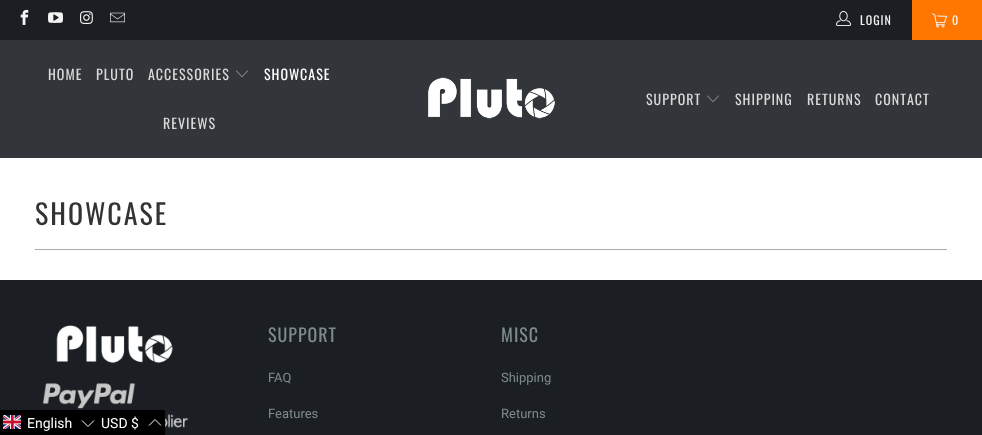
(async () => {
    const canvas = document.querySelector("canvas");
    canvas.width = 982;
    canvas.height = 435;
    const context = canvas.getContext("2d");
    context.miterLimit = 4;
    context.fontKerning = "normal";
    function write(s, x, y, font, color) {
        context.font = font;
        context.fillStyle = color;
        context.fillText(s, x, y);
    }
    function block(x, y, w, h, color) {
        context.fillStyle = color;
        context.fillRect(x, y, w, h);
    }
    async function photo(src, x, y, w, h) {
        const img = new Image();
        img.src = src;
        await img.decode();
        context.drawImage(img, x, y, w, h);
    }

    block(0, 0, 982, 435, "rgb(255, 255, 255)");
    block(0, 0, 912, 40, "rgb(27, 31, 35)");
    await photo("media/1.png", 20, 9, 9, 16);
    await photo("media/2.png", 48, 12, 15, 11);
    await photo("media/3.png", 80, 11, 13, 13);
    await photo("media/4.png", 110, 12, 15, 11);
    await photo("media/5.png", 836, 10, 15, 16);
    context.letterSpacing = "1px";
    write("LOGIN", 860, 25, "12px Oswald", "rgb(244, 244, 244)");
    block(912, 0, 70, 40, "rgb(255, 119, 0)");
    await photo("media/6.png", 932, 13, 15, 15);
    write("0", 952, 25, "12px Oswald", "rgb(244, 244, 244)");
    block(0, 40, 982, 118, "rgb(50, 53, 57)");
    write("HOME", 48, 80, "14px Oswald", "rgb(217, 217, 217)");
    write("PLUTO", 96, 80, "14px Oswald", "rgb(217, 217, 217)");
    write("ACCESSORIES", 148, 80, "14px Oswald", "rgb(217, 217, 217)");
    await photo("media/7.png", 236, 70, 12, 7);
    write("SHOWCASE", 264, 80, "14px Oswald", "rgb(255, 255, 255)");
    write("REVIEWS", 163, 129, "14px Oswald", "rgb(217, 217, 217)");
    await photo("media/8.png", 428, 77, 127, 42);
    write("SUPPORT", 646, 105, "14px Oswald", "rgb(217, 217, 217)");
    await photo("media/7.png", 707, 95, 12, 7);
    write("SHIPPING", 735, 105, "14px Oswald", "rgb(217, 217, 217)");
    write("RETURNS", 807, 105, "14px Oswald", "rgb(217, 217, 217)");
    write("CONTACT", 875, 105, "14px Oswald", "rgb(217, 217, 217)");
    context.letterSpacing = "2px";
    write("SHOWCASE", 35, 225, "28px Oswald", "rgb(51, 51, 51)");
    block(35, 249, 912, 1, "rgb(170, 170, 170)");
    block(0, 280, 982, 155, "rgb(27, 31, 35)");
    await photo("media/9.png", 43, 325, 146, 103);
    context.letterSpacing = "1px";
    write("SUPPORT", 268, 342, "18px Oswald", "rgb(127, 140, 141)");
    context.letterSpacing = "0px";
    write("FAQ", 268, 382, "13px Roboto", "rgb(127, 140, 141)");
    write("Features", 268, 418, "13px Roboto", "rgb(127, 140, 141)");
    context.letterSpacing = "1px";
    write("MISC", 501, 342, "18px Oswald", "rgb(127, 140, 141)");
    context.letterSpacing = "0px";
    write("Shipping", 501, 382, "13px Roboto", "rgb(127, 140, 141)");
    write("Returns", 501, 418, "13px Roboto", "rgb(127, 140, 141)");
    block(0, 410, 165, 25, "rgb(0, 0, 0)");
    await photo("media/10.png", 3, 415, 18, 14);
    write("English", 27, 428, "14px Roboto", "rgb(255, 255, 255)");
    context.beginPath();
    context.moveTo(82, 420.5);
    context.lineTo(88, 426.5);
    context.lineTo(94, 420.5);
    context.strokeStyle = "rgb(255, 255, 255)";
    context.stroke();
    write("USD $", 101, 428, "14px Roboto", "rgb(255, 255, 255)");
    context.beginPath();
    context.moveTo(161, 425.5);
    context.lineTo(155, 419.5);
    context.lineTo(149, 425.5);
    context.stroke();
})();
